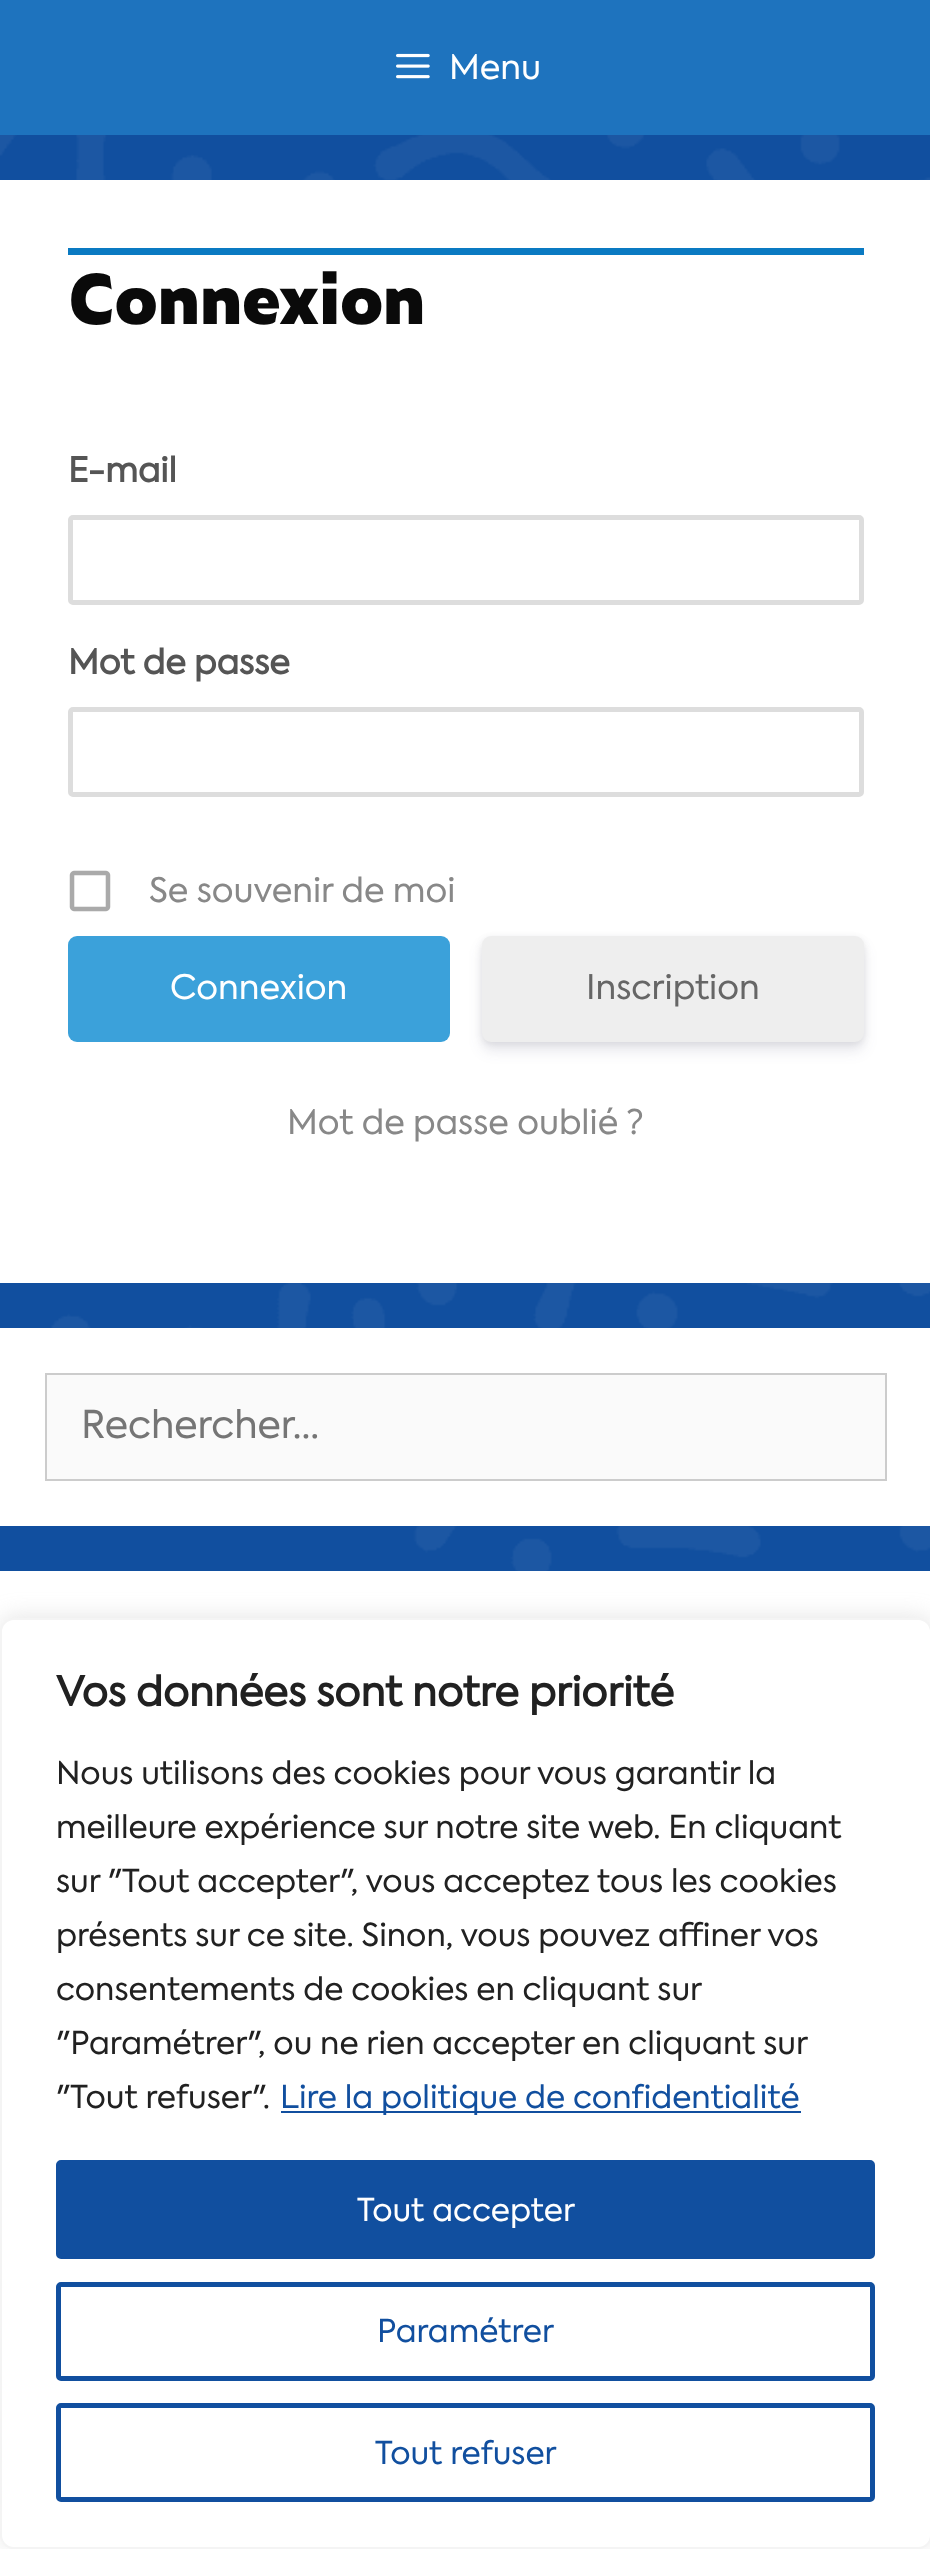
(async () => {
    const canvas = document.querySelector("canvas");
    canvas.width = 930;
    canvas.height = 2549;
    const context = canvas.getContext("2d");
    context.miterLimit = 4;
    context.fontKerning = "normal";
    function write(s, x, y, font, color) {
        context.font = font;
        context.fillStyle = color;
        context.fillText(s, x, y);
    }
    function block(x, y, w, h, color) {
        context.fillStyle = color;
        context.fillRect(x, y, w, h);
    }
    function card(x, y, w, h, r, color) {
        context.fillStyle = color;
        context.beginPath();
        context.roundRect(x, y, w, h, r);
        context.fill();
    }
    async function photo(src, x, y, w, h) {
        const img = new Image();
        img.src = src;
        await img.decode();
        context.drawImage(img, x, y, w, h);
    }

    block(0, 0, 930, 2549, "rgb(17, 79, 159)");
    await photo("media/1.png", 0, 135, 930, 1436);
    block(0, 0, 930, 135, "rgb(30, 115, 190)");
    await photo("media/2.png", 396, 53, 34, 26);
    write("Menu", 449, 79, "33.75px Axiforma", "rgb(255, 255, 255)");
    block(0, 180, 930, 1103, "rgb(255, 255, 255)");
    block(68, 248, 796, 7, "rgb(10, 122, 194)");
    write("Connexion", 68, 324, "800 67.5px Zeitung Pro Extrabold", "rgb(10, 10, 10)");
    write("E-mail", 68, 482, "bold 33.75px Axiforma", "rgb(85, 85, 85)");
    context.beginPath();
    context.roundRect(70.5, 517.5, 791, 85, 2.5);
    context.strokeStyle = "rgb(221, 221, 221)";
    context.lineWidth = 5;
    context.stroke();
    write("Mot de passe", 68, 674, "bold 33.75px Axiforma", "rgb(85, 85, 85)");
    context.beginPath();
    context.roundRect(70.5, 709.5, 791, 85, 2.5);
    context.stroke();
    await photo("media/3.png", 69, 870, 42, 42);
    write("Se souvenir de moi", 149, 902, "33.75px Axiforma", "rgb(136, 136, 136)");
    card(68, 936, 382, 106, 9, "rgb(59, 161, 218)");
    write("Connexion", 170, 999, "33.75px Axiforma", "rgb(255, 255, 255)");
    context.fillStyle = "rgba(0, 0, 0, 0.08)";
    context.filter = "blur(3.5px)";
    context.beginPath();
    context.roundRect(482, 938, 382, 106, 9);
    context.fill();
    context.filter = "none";
    context.fillStyle = "rgba(50, 50, 93, 0.11)";
    context.filter = "blur(7px)";
    context.beginPath();
    context.roundRect(482, 945, 382, 106, 9);
    context.fill();
    context.filter = "none";
    card(482, 936, 382, 106, 9, "rgb(238, 238, 238)");
    write("Inscription", 586, 999, "33.75px Axiforma", "rgb(102, 102, 102)");
    write("Mot de passe oublié ?", 287, 1134, "33.75px Axiforma", "rgb(136, 136, 136)");
    block(0, 1328, 930, 198, "rgb(255, 255, 255)");
    context.fillStyle = "rgb(250, 250, 250)";
    context.beginPath();
    context.rect(46, 1374, 840, 106);
    context.fill();
    context.strokeStyle = "rgb(204, 204, 204)";
    context.lineWidth = 2;
    context.stroke();
    write("Rechercher…", 81, 1438, "38.25px Axiforma", "rgb(117, 117, 117)");
    block(0, 1571, 930, 978, "rgb(255, 255, 255)");
    context.fillStyle = "rgba(172, 171, 171, 0.3)";
    context.filter = "blur(11px)";
    context.beginPath();
    context.roundRect(0, 1616, 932, 931, 14);
    context.fill();
    context.filter = "none";
    context.fillStyle = "rgb(255, 255, 255)";
    context.beginPath();
    context.roundRect(1, 1619, 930, 929, 13);
    context.fill();
    context.strokeStyle = "rgb(244, 244, 244)";
    context.stroke();
    write("Vos données sont notre priorité", 56, 1706, "bold 40.5px Axiforma", "rgb(33, 33, 33)");
    write("Nous utilisons des cookies pour vous garantir la", 56, 1784, "31.5px Axiforma", "rgb(33, 33, 33)");
    write("meilleure expérience sur notre site web. En cliquant", 56, 1838, "31.5px Axiforma", "rgb(33, 33, 33)");
    write("sur \"Tout accepter\", vous acceptez tous les cookies", 56, 1892, "31.5px Axiforma", "rgb(33, 33, 33)");
    write("présents sur ce site. Sinon, vous pouvez affiner vos", 56, 1946, "31.5px Axiforma", "rgb(33, 33, 33)");
    write("consentements de cookies en cliquant sur", 56, 2000, "31.5px Axiforma", "rgb(33, 33, 33)");
    write("\"Paramétrer\", ou ne rien accepter en cliquant sur", 56, 2054, "31.5px Axiforma", "rgb(33, 33, 33)");
    write("\"Tout refuser\".", 56, 2108, "31.5px Axiforma", "rgb(33, 33, 33)");
    block(281, 2111, 520, 2, "rgb(17, 79, 159)");
    write("Lire la politique de confidentialité", 280, 2108, "31.5px Axiforma", "rgb(17, 79, 159)");
    context.beginPath();
    context.roundRect(58.5, 2162.5, 814, 94, 2.5);
    context.fill();
    context.strokeStyle = "rgb(17, 79, 159)";
    context.lineWidth = 5;
    context.stroke();
    write("Tout accepter", 357, 2221, "31.5px Axiforma", "rgb(255, 255, 255)");
    context.beginPath();
    context.roundRect(58.5, 2284.5, 814, 94, 2.5);
    context.stroke();
    write("Paramétrer", 377, 2342, "31.5px Axiforma", "rgb(17, 79, 159)");
    context.beginPath();
    context.roundRect(58.5, 2405.5, 814, 94, 2.5);
    context.stroke();
    write("Tout refuser", 375, 2464, "31.5px Axiforma", "rgb(17, 79, 159)");
})();
